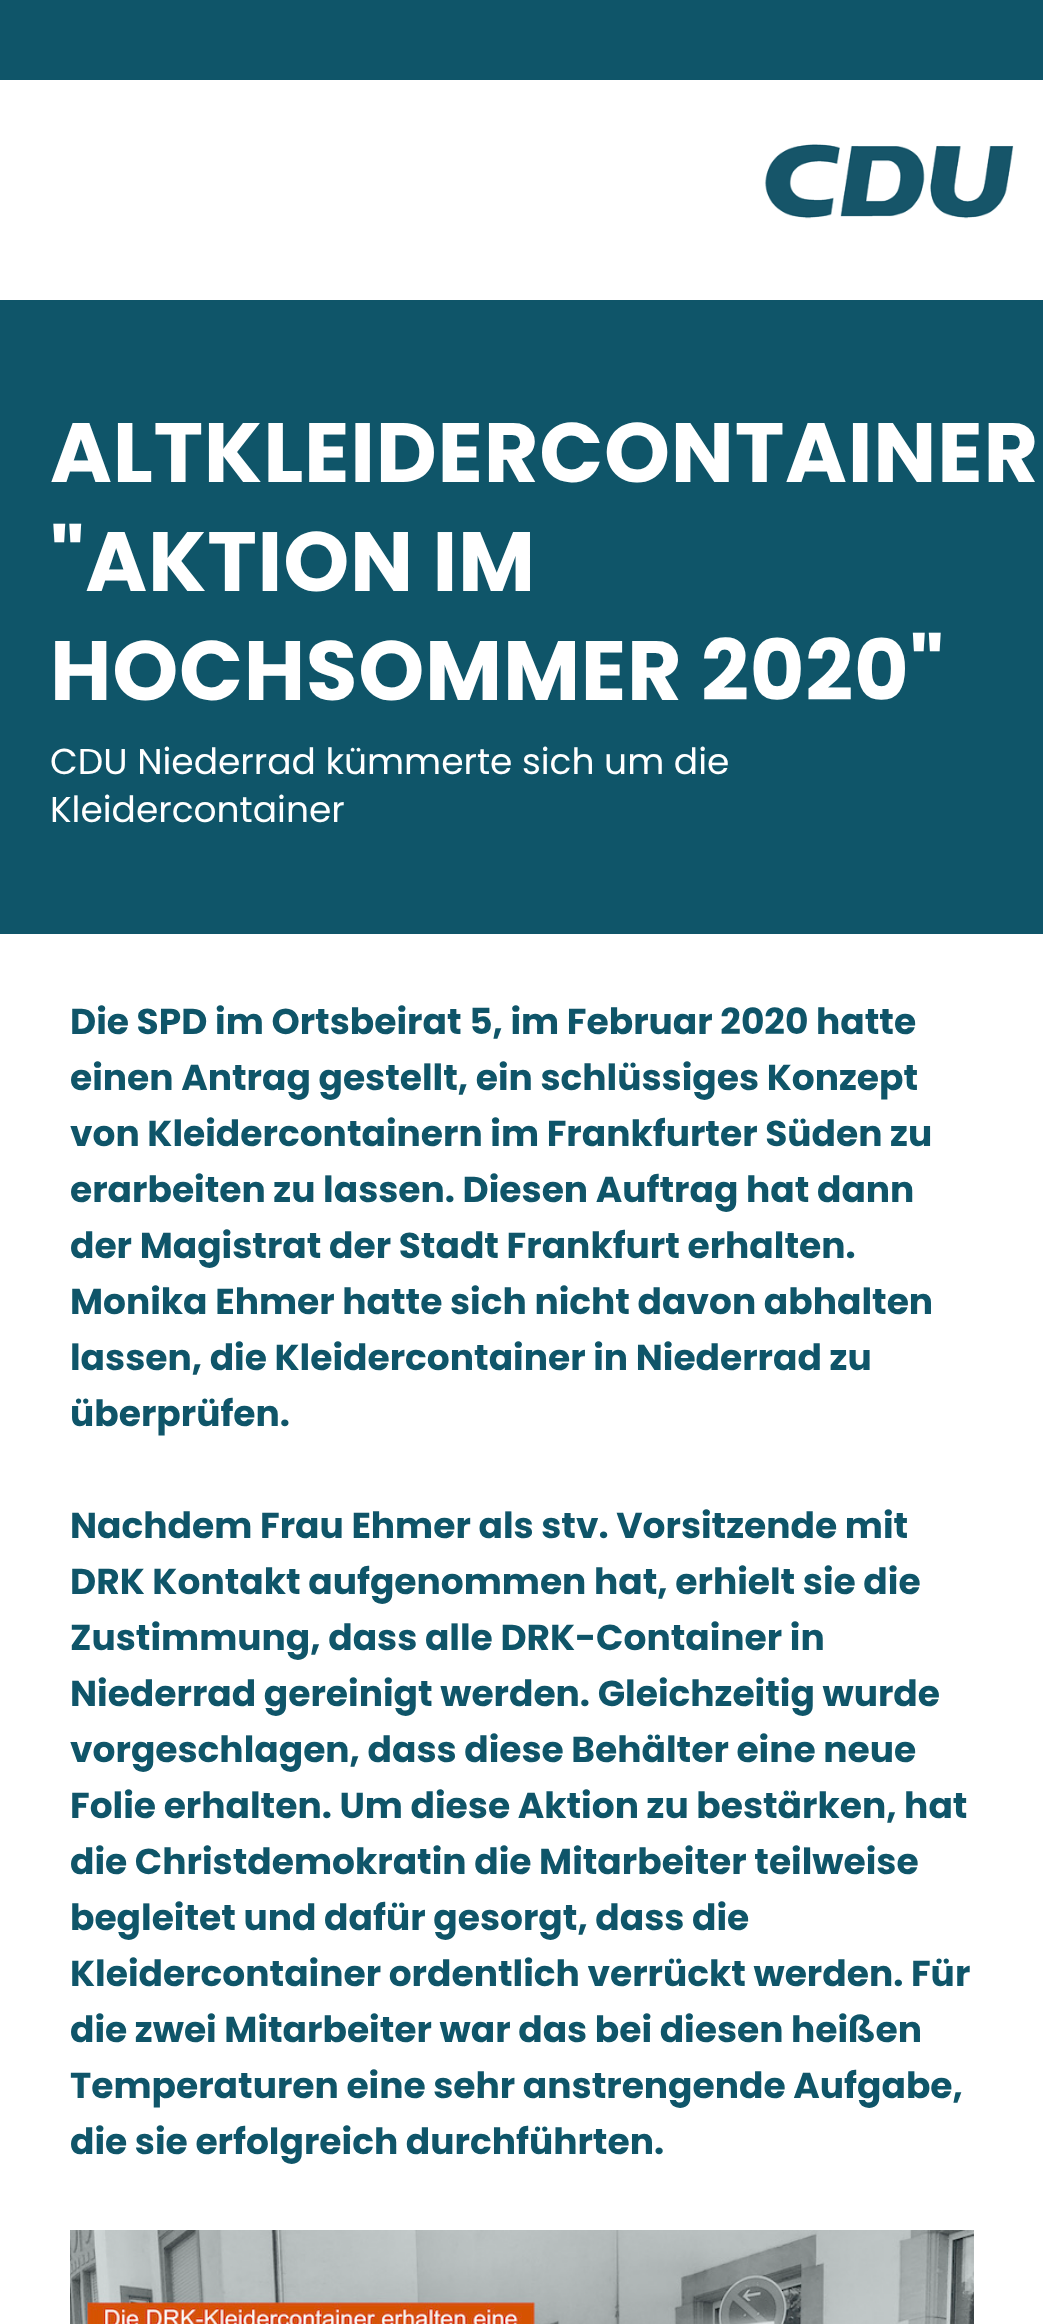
(async () => {
    const canvas = document.querySelector("canvas");
    canvas.width = 1043;
    canvas.height = 2324;
    const context = canvas.getContext("2d");
    context.miterLimit = 4;
    context.fontKerning = "normal";
    function write(s, x, y, font, color) {
        context.font = font;
        context.fillStyle = color;
        context.fillText(s, x, y);
    }
    function block(x, y, w, h, color) {
        context.fillStyle = color;
        context.fillRect(x, y, w, h);
    }
    async function photo(src, x, y, w, h) {
        const img = new Image();
        img.src = src;
        await img.decode();
        context.drawImage(img, x, y, w, h);
    }

    block(0, 0, 1043, 2324, "rgb(255, 255, 255)");
    block(0, 0, 1043, 80, "rgb(15, 85, 105)");
    await photo("media/1.png", 764, 144, 250, 75);
    block(0, 300, 1043, 634, "rgb(15, 85, 105)");
    context.letterSpacing = "0.75px";
    write("ALTKLEIDERCONTAINER", 50, 482, "bold 84px Poppins", "rgb(255, 255, 255)");
    write("\"AKTION IM", 50, 591, "bold 84px Poppins", "rgb(255, 255, 255)");
    write("HOCHSOMMER 2020\"", 50, 700, "bold 84px Poppins", "rgb(255, 255, 255)");
    context.letterSpacing = "0px";
    write("CDU Niederrad kümmerte sich um die", 50, 774, "36px Poppins", "rgb(255, 255, 255)");
    write("Kleidercontainer", 50, 822, "36px Poppins", "rgb(255, 255, 255)");
    write("Die SPD im Ortsbeirat 5, im Februar 2020 hatte", 70, 1034, "bold 36px Poppins", "rgb(15, 85, 105)");
    write("einen Antrag gestellt, ein schlüssiges Konzept", 70, 1090, "bold 36px Poppins", "rgb(15, 85, 105)");
    write("von Kleidercontainern im Frankfurter Süden zu", 70, 1146, "bold 36px Poppins", "rgb(15, 85, 105)");
    write("erarbeiten zu lassen. Diesen Auftrag hat dann", 70, 1202, "bold 36px Poppins", "rgb(15, 85, 105)");
    write("der Magistrat der Stadt Frankfurt erhalten.", 70, 1258, "bold 36px Poppins", "rgb(15, 85, 105)");
    write("Monika Ehmer hatte sich nicht davon abhalten", 70, 1314, "bold 36px Poppins", "rgb(15, 85, 105)");
    write("lassen, die Kleidercontainer in Niederrad zu", 70, 1370, "bold 36px Poppins", "rgb(15, 85, 105)");
    write("überprüfen.", 70, 1426, "bold 36px Poppins", "rgb(15, 85, 105)");
    write("Nachdem Frau Ehmer als stv. Vorsitzende mit", 70, 1538, "bold 36px Poppins", "rgb(15, 85, 105)");
    write("DRK Kontakt aufgenommen hat, erhielt sie die", 70, 1594, "bold 36px Poppins", "rgb(15, 85, 105)");
    write("Zustimmung, dass alle DRK-Container in", 70, 1650, "bold 36px Poppins", "rgb(15, 85, 105)");
    write("Niederrad gereinigt werden. Gleichzeitig wurde", 70, 1706, "bold 36px Poppins", "rgb(15, 85, 105)");
    write("vorgeschlagen, dass diese Behälter eine neue", 70, 1762, "bold 36px Poppins", "rgb(15, 85, 105)");
    write("Folie erhalten. Um diese Aktion zu bestärken, hat", 70, 1818, "bold 36px Poppins", "rgb(15, 85, 105)");
    write("die Christdemokratin die Mitarbeiter teilweise", 70, 1874, "bold 36px Poppins", "rgb(15, 85, 105)");
    write("begleitet und dafür gesorgt, dass die", 70, 1930, "bold 36px Poppins", "rgb(15, 85, 105)");
    write("Kleidercontainer ordentlich verrückt werden. Für", 70, 1986, "bold 36px Poppins", "rgb(15, 85, 105)");
    write("die zwei Mitarbeiter war das bei diesen heißen", 70, 2042, "bold 36px Poppins", "rgb(15, 85, 105)");
    write("Temperaturen eine sehr anstrengende Aufgabe,", 70, 2098, "bold 36px Poppins", "rgb(15, 85, 105)");
    write("die sie erfolgreich durchführten.", 70, 2154, "bold 36px Poppins", "rgb(15, 85, 105)");
    await photo("media/2.png", 70, 2230, 904, 94);
})();
